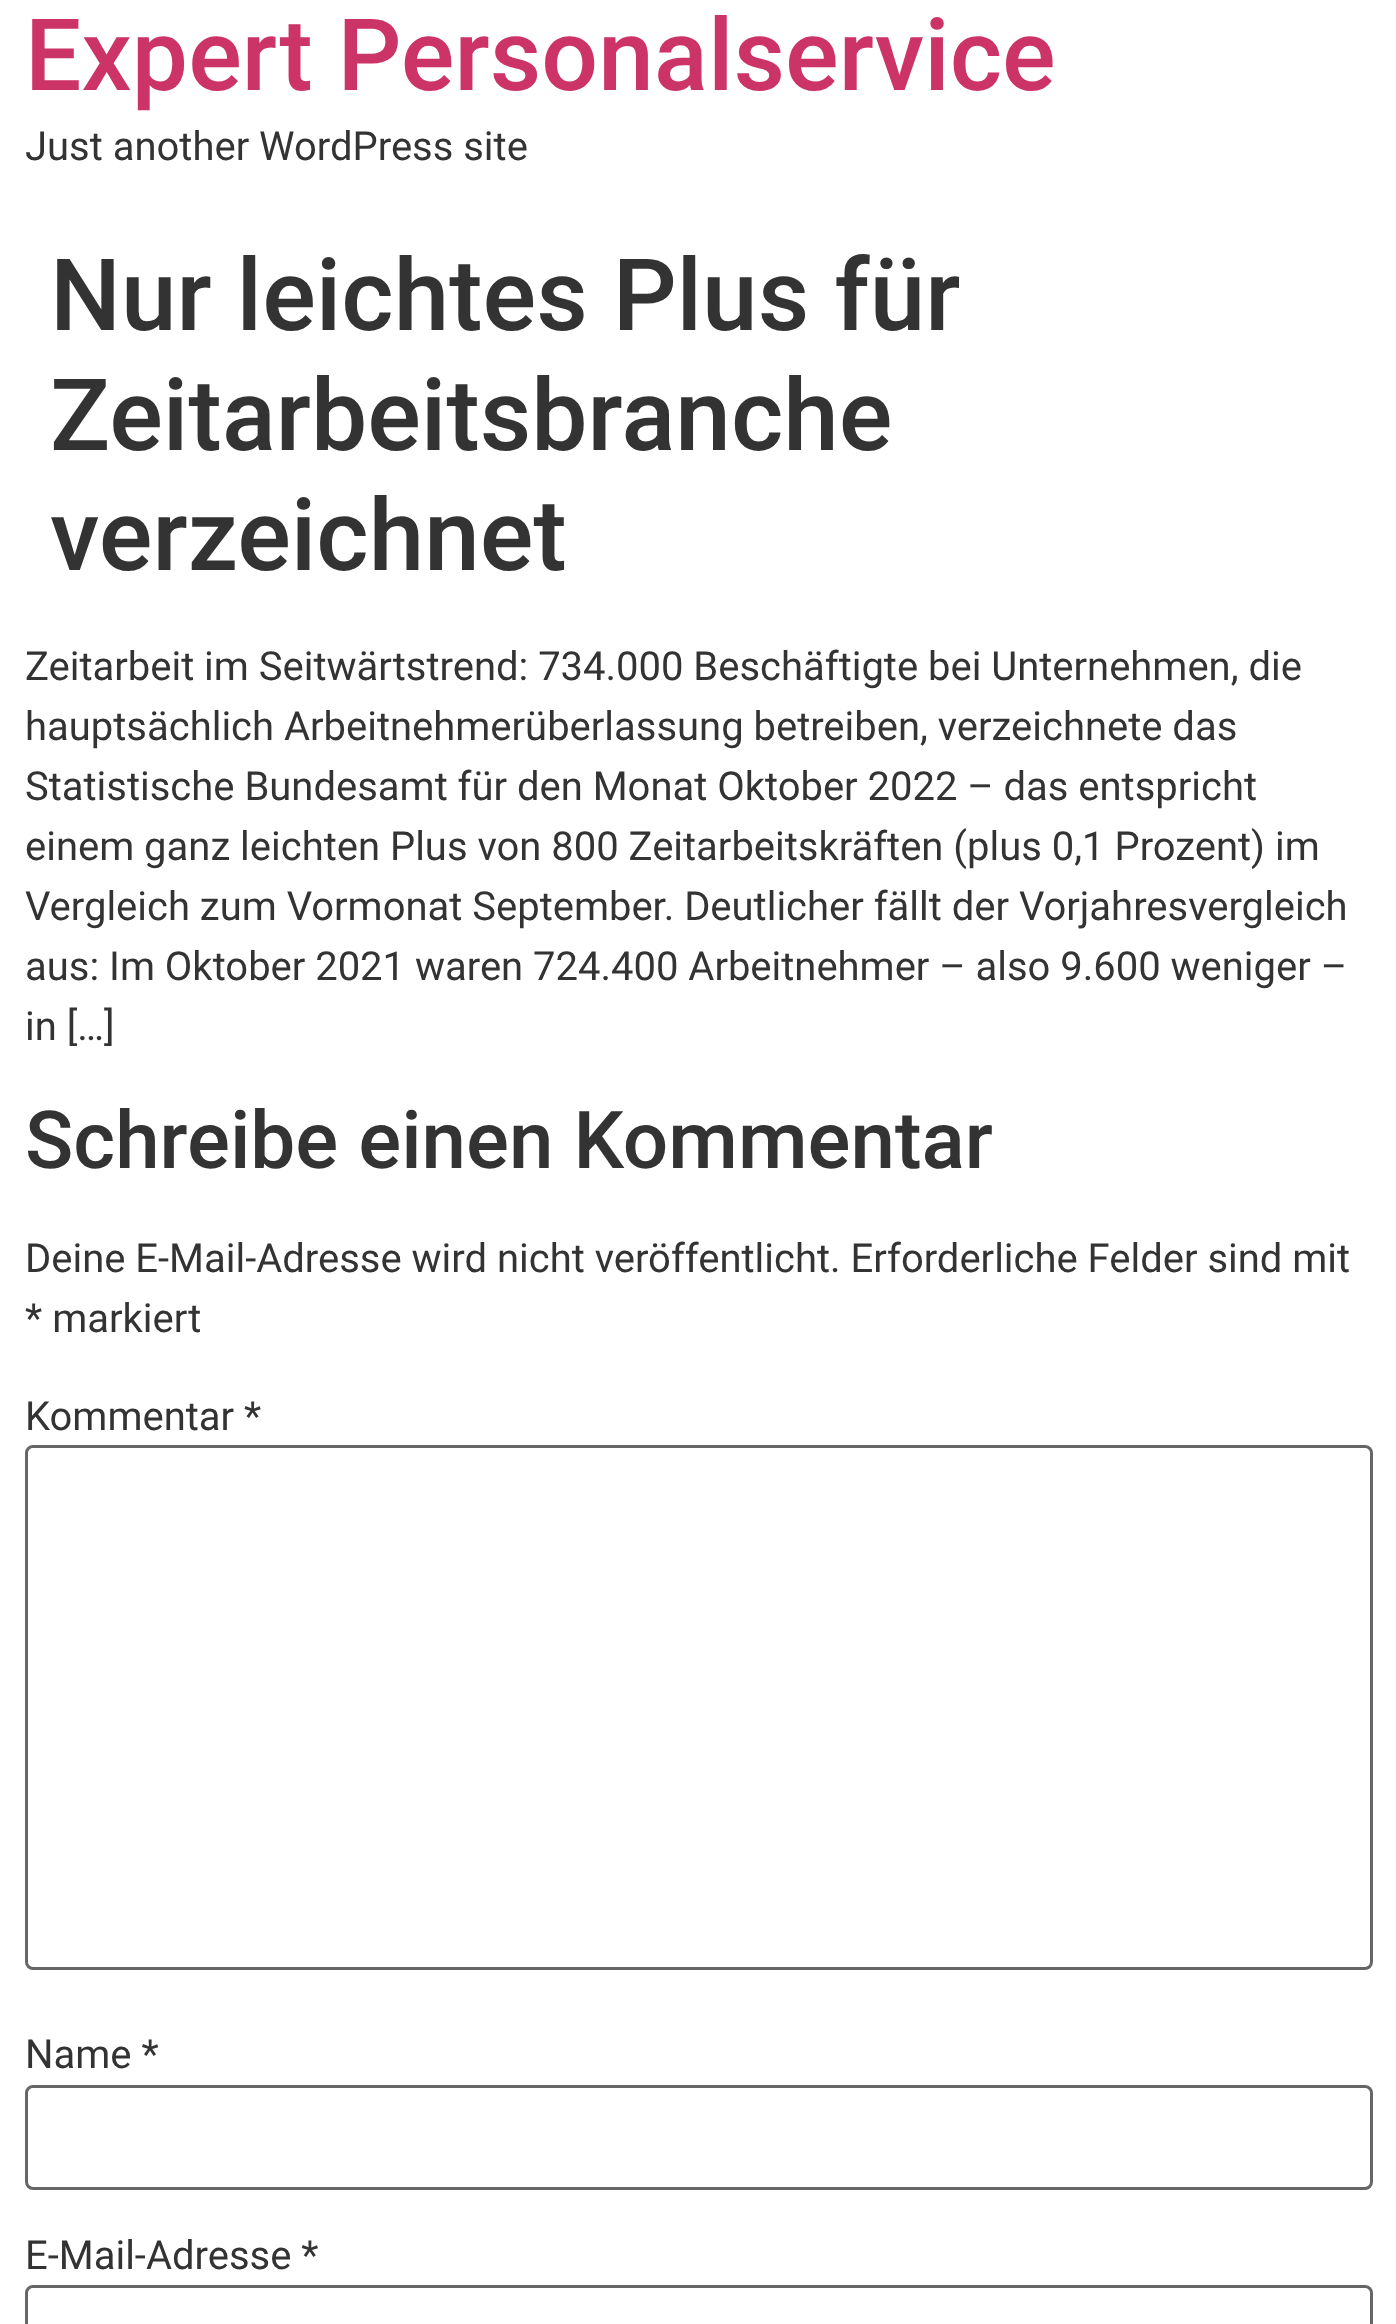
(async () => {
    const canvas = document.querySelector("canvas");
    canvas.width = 1396;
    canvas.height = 2324;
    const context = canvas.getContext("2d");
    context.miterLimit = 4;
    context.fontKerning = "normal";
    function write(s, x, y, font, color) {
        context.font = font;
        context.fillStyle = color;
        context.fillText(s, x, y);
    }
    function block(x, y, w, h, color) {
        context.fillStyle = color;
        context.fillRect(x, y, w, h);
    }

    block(0, 0, 1396, 2324, "rgb(255, 255, 255)");
    write("Expert Personalservice", 25, 90, "500 100px Roboto", "rgb(204, 51, 102)");
    write("Just another WordPress site", 25, 160, "40px Roboto", "rgb(51, 51, 51)");
    write("Nur leichtes Plus für", 50, 330, "500 100px Roboto", "rgb(51, 51, 51)");
    write("Zeitarbeitsbranche", 50, 450, "500 100px Roboto", "rgb(51, 51, 51)");
    write("verzeichnet", 50, 570, "500 100px Roboto", "rgb(51, 51, 51)");
    write("Zeitarbeit im Seitwärtstrend: 734.000 Beschäftigte bei Unternehmen, die", 25, 680, "40px Roboto", "rgb(51, 51, 51)");
    write("hauptsächlich Arbeitnehmerüberlassung betreiben, verzeichnete das", 25, 740, "40px Roboto", "rgb(51, 51, 51)");
    write("Statistische Bundesamt für den Monat Oktober 2022 – das entspricht", 25, 800, "40px Roboto", "rgb(51, 51, 51)");
    write("einem ganz leichten Plus von 800 Zeitarbeitskräften (plus 0,1 Prozent) im", 25, 860, "40px Roboto", "rgb(51, 51, 51)");
    write("Vergleich zum Vormonat September. Deutlicher fällt der Vorjahresvergleich", 25, 920, "40px Roboto", "rgb(51, 51, 51)");
    write("aus: Im Oktober 2021 waren 724.400 Arbeitnehmer – also 9.600 weniger –", 25, 980, "40px Roboto", "rgb(51, 51, 51)");
    write("in […]", 25, 1040, "40px Roboto", "rgb(51, 51, 51)");
    write("Schreibe einen Kommentar", 25, 1168, "500 80px Roboto", "rgb(51, 51, 51)");
    write("Deine E-Mail-Adresse wird nicht veröffentlicht. Erforderliche Felder sind mit", 25, 1272, "40px Roboto", "rgb(51, 51, 51)");
    write("* markiert", 25, 1332, "40px Roboto", "rgb(51, 51, 51)");
    write("Kommentar *", 25, 1430, "40px Roboto", "rgb(51, 51, 51)");
    context.beginPath();
    context.roundRect(26.5, 1446.5, 1345, 522, 6.5);
    context.strokeStyle = "rgb(102, 102, 102)";
    context.lineWidth = 3;
    context.stroke();
    write("Name *", 25, 2068, "40px Roboto", "rgb(51, 51, 51)");
    context.beginPath();
    context.roundRect(26.5, 2086.5, 1345, 102, 6.5);
    context.stroke();
    write("E-Mail-Adresse *", 25, 2269, "40px Roboto", "rgb(51, 51, 51)");
    context.beginPath();
    context.roundRect(26.5, 2286.5, 1345, 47, 6.5);
    context.stroke();
})();
